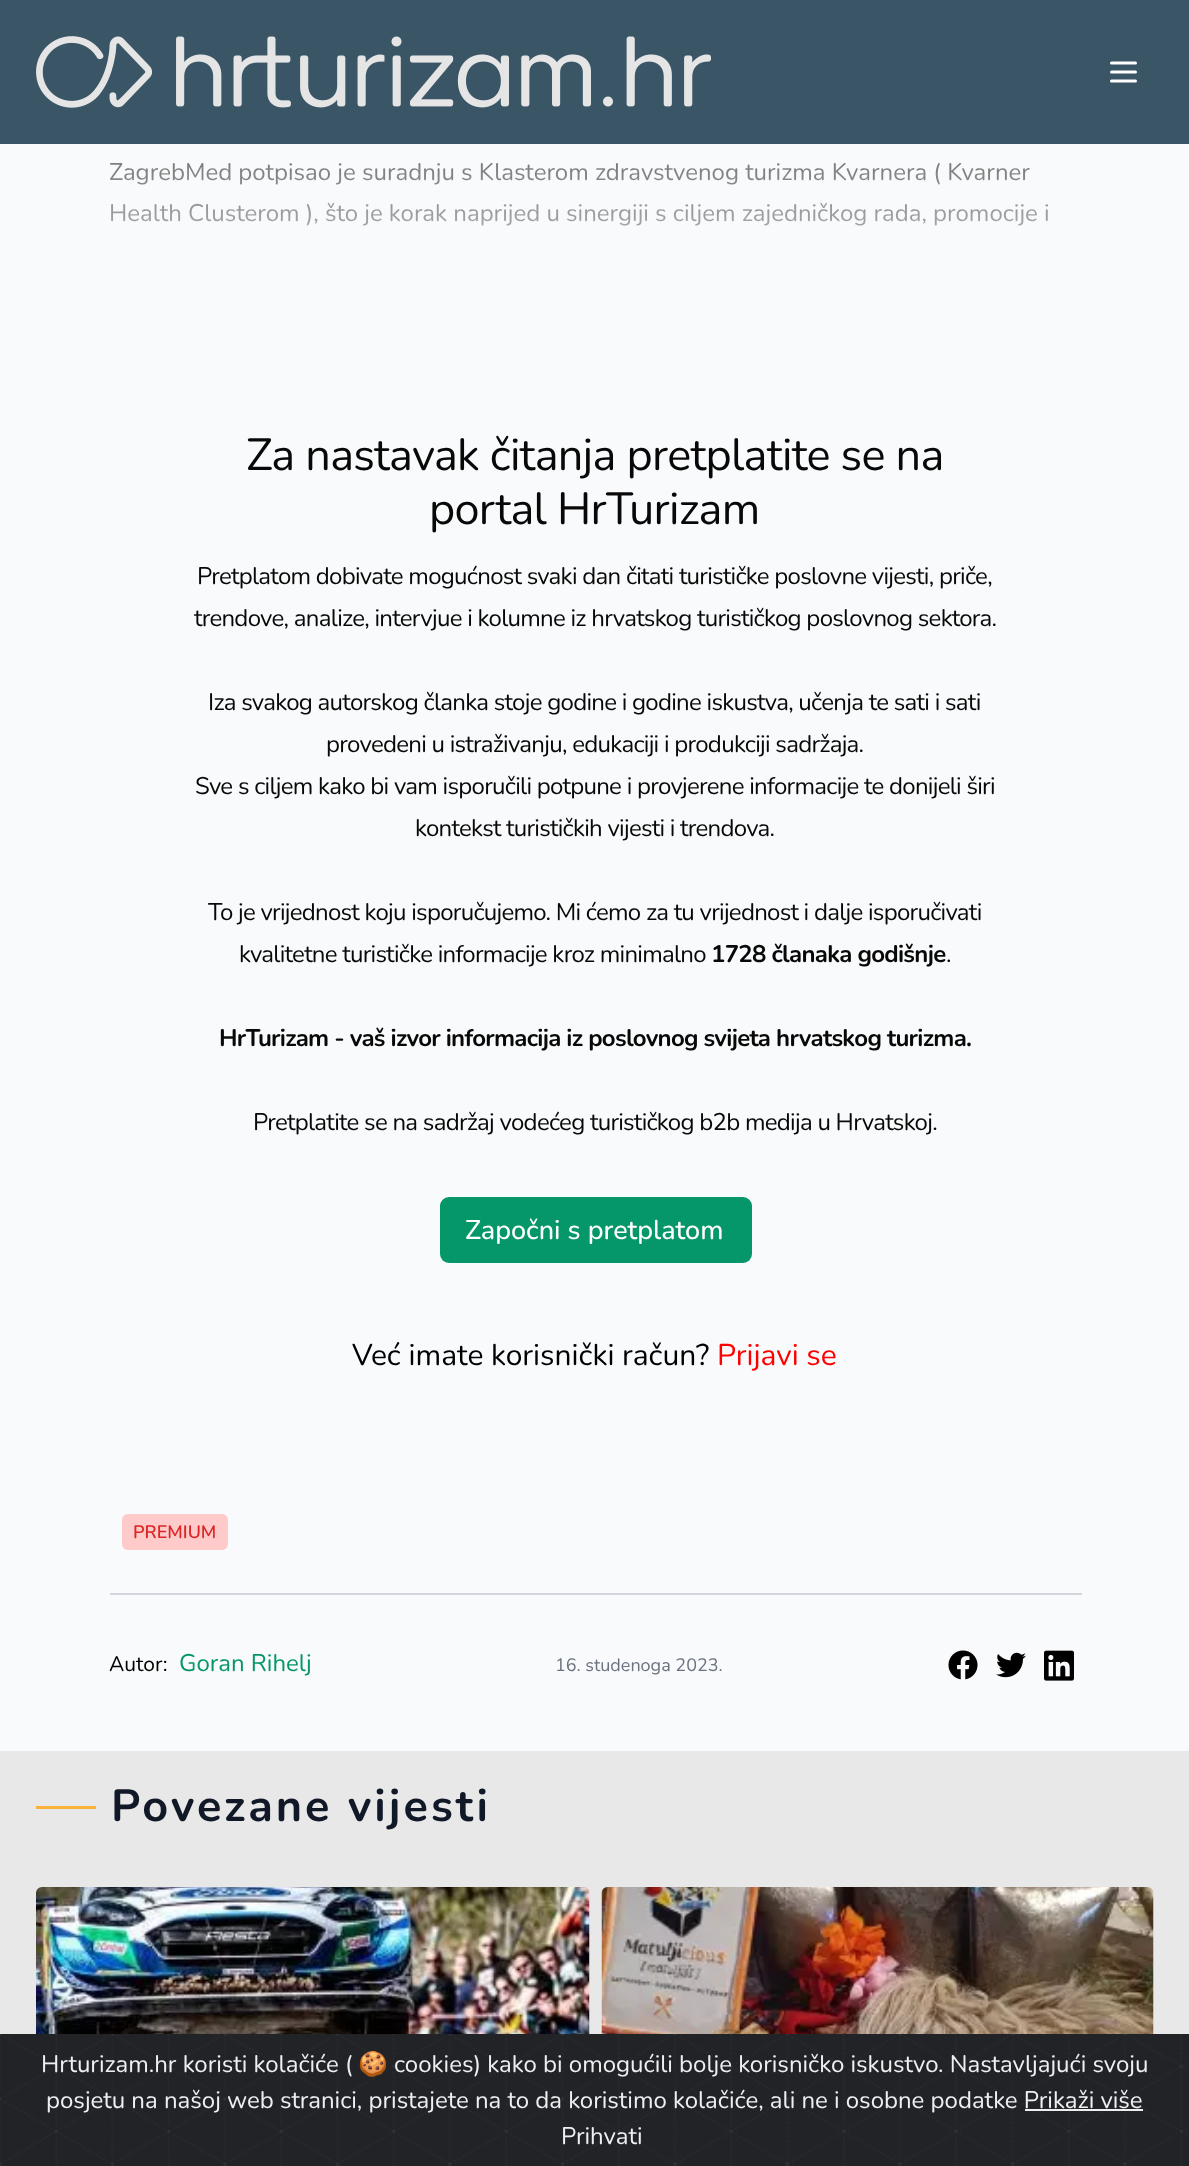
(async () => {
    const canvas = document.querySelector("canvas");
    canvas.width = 1189;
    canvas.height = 2166;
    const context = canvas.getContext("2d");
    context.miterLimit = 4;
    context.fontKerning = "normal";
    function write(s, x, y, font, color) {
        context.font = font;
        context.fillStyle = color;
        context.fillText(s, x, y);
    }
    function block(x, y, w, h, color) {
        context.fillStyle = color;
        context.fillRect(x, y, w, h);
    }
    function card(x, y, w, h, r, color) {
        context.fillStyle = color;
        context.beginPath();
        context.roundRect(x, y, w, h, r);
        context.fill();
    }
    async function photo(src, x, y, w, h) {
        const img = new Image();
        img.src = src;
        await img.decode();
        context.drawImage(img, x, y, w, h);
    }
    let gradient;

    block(0, 0, 1189, 2166, "rgb(249, 250, 251)");
    block(0, 0, 1189, 144, "rgb(57, 85, 102)");
    await photo("media/1.png", 36, 36, 675, 72);
    context.beginPath();
    context.moveTo(1111.5, 63);
    context.lineTo(1135.5, 63);
    context.moveTo(1111.5, 72);
    context.lineTo(1135.5, 72);
    context.moveTo(1111.5, 81);
    context.lineTo(1135.5, 81);
    context.strokeStyle = "rgb(255, 255, 255)";
    context.lineWidth = 3;
    context.lineCap = "round";
    context.lineJoin = "round";
    context.stroke();
    write("ZagrebMed potpisao je suradnju s Klasterom zdravstvenog turizma Kvarnera ( Kvarner", 109, 180, "24px Nunito", "rgb(0, 0, 0)");
    write("Health Clusterom ), što je korak naprijed u sinergiji s ciljem zajedničkog rada, promocije i", 109, 221, "24px Nunito", "rgb(0, 0, 0)");
    gradient = context.createLinearGradient(596, -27, 596, 357);
    gradient.addColorStop(0, "rgba(249, 250, 251, 0)");
    gradient.addColorStop(1, "rgb(249, 250, 251)");
    context.fillStyle = gradient;
    context.fillRect(110, 162, 938, 64);
    context.letterSpacing = "-0.72px";
    write("Za nastavak čitanja pretplatite se na", 246, 470, "45px Nunito", "rgb(8, 8, 8)");
    write("portal HrTurizam", 429, 524, "45px Nunito", "rgb(8, 8, 8)");
    write("Pretplatom dobivate mogućnost svaki dan čitati turističke poslovne vijesti, priče,", 197, 584, "24px Nunito", "rgb(8, 8, 8)");
    write("trendove, analize, intervjue i kolumne iz hrvatskog turističkog poslovnog sektora.", 194, 626, "24px Nunito", "rgb(8, 8, 8)");
    write("Iza svakog autorskog članka stoje godine i godine iskustva, učenja te sati i sati", 208, 710, "24px Nunito", "rgb(8, 8, 8)");
    write("provedeni u istraživanju, edukaciji i produkciji sadržaja.", 326, 752, "24px Nunito", "rgb(8, 8, 8)");
    write("Sve s ciljem kako bi vam isporučili potpune i provjerene informacije te donijeli širi", 195, 794, "24px Nunito", "rgb(8, 8, 8)");
    write("kontekst turističkih vijesti i trendova.", 415, 836, "24px Nunito", "rgb(8, 8, 8)");
    write("To je vrijednost koju isporučujemo. Mi ćemo za tu vrijednost i dalje isporučivati", 208, 920, "24px Nunito", "rgb(8, 8, 8)");
    write("kvalitetne turističke informacije kroz minimalno", 239, 962, "24px Nunito", "rgb(8, 8, 8)");
    write("1728 članaka godišnje", 711, 962, "bold 24px Nunito", "rgb(8, 8, 8)");
    write(".", 946, 962, "24px Nunito", "rgb(8, 8, 8)");
    write("HrTurizam - vaš izvor informacija iz poslovnog svijeta hrvatskog turizma.", 219, 1046, "bold 24px Nunito", "rgb(8, 8, 8)");
    write("Pretplatite se na sadržaj vodećeg turističkog b2b medija u Hrvatskoj.", 253, 1130, "24px Nunito", "rgb(8, 8, 8)");
    card(440, 1197, 312, 66, 9, "rgb(5, 150, 105)");
    context.letterSpacing = "0px";
    write("Započni s pretplatom", 465, 1239, "500 27px Nunito", "rgb(255, 255, 255)");
    write("Već imate korisnički račun?", 352, 1365, "30px Nunito", "rgb(0, 0, 0)");
    write("Prijavi se", 717, 1365, "30px Nunito", "rgb(255, 0, 0)");
    card(122, 1514, 106, 36, 6, "rgb(254, 202, 202)");
    write("PREMIUM", 133, 1538, "600 18px Nunito", "rgb(220, 38, 38)");
    block(110, 1593, 972, 2, "rgb(209, 213, 219)");
    write("Autor:", 109, 1671, "21px Nunito", "rgb(0, 0, 0)");
    write("Goran Rihelj", 179, 1671, "24px Nunito", "rgb(5, 150, 105)");
    write("16. studenoga 2023.", 555, 1671, "18px Nunito", "rgb(107, 114, 128)");
    await photo("media/2.png", 948, 1650, 30, 30);
    await photo("media/3.png", 996, 1652, 30, 26);
    await photo("media/4.png", 1044, 1650, 30, 31);
    block(0, 1751, 1189, 283, "rgb(232, 232, 232)");
    block(36, 1806, 60, 3, "rgb(249, 179, 59)");
    context.letterSpacing = "3px";
    write("Povezane vijesti", 111, 1821, "bold 45px Nunito", "rgb(17, 24, 39)");
    await photo("media/5.png", 36, 1887, 554, 147);
    await photo("media/6.png", 601, 1887, 553, 147);
    block(1187, 2034, 2, 132, "rgb(33, 35, 39)");
    await photo("media/7.png", 0, 2034, 1187, 132);
    context.letterSpacing = "0px";
    write("Hrturizam.hr koristi kolačiće (", 41, 2072, "24px Nunito", "rgb(236, 240, 241)");
    write("🍪", 358, 2072, "24px Noto Color Emoji", "rgb(236, 240, 241)");
    write("cookies) kako bi omogućili bolje korisničko iskustvo. Nastavljajući svoju", 394, 2072, "24px Nunito", "rgb(236, 240, 241)");
    write("posjetu na našoj web stranici, pristajete na to da koristimo kolačiće, ali ne i osobne podatke Prikaži više", 46, 2108, "24px Nunito", "rgb(236, 240, 241)");
    block(1025, 2109, 118, 2, "rgb(236, 240, 241)");
    write("Prihvati", 561, 2144, "24px Nunito", "rgb(236, 240, 241)");
})();
